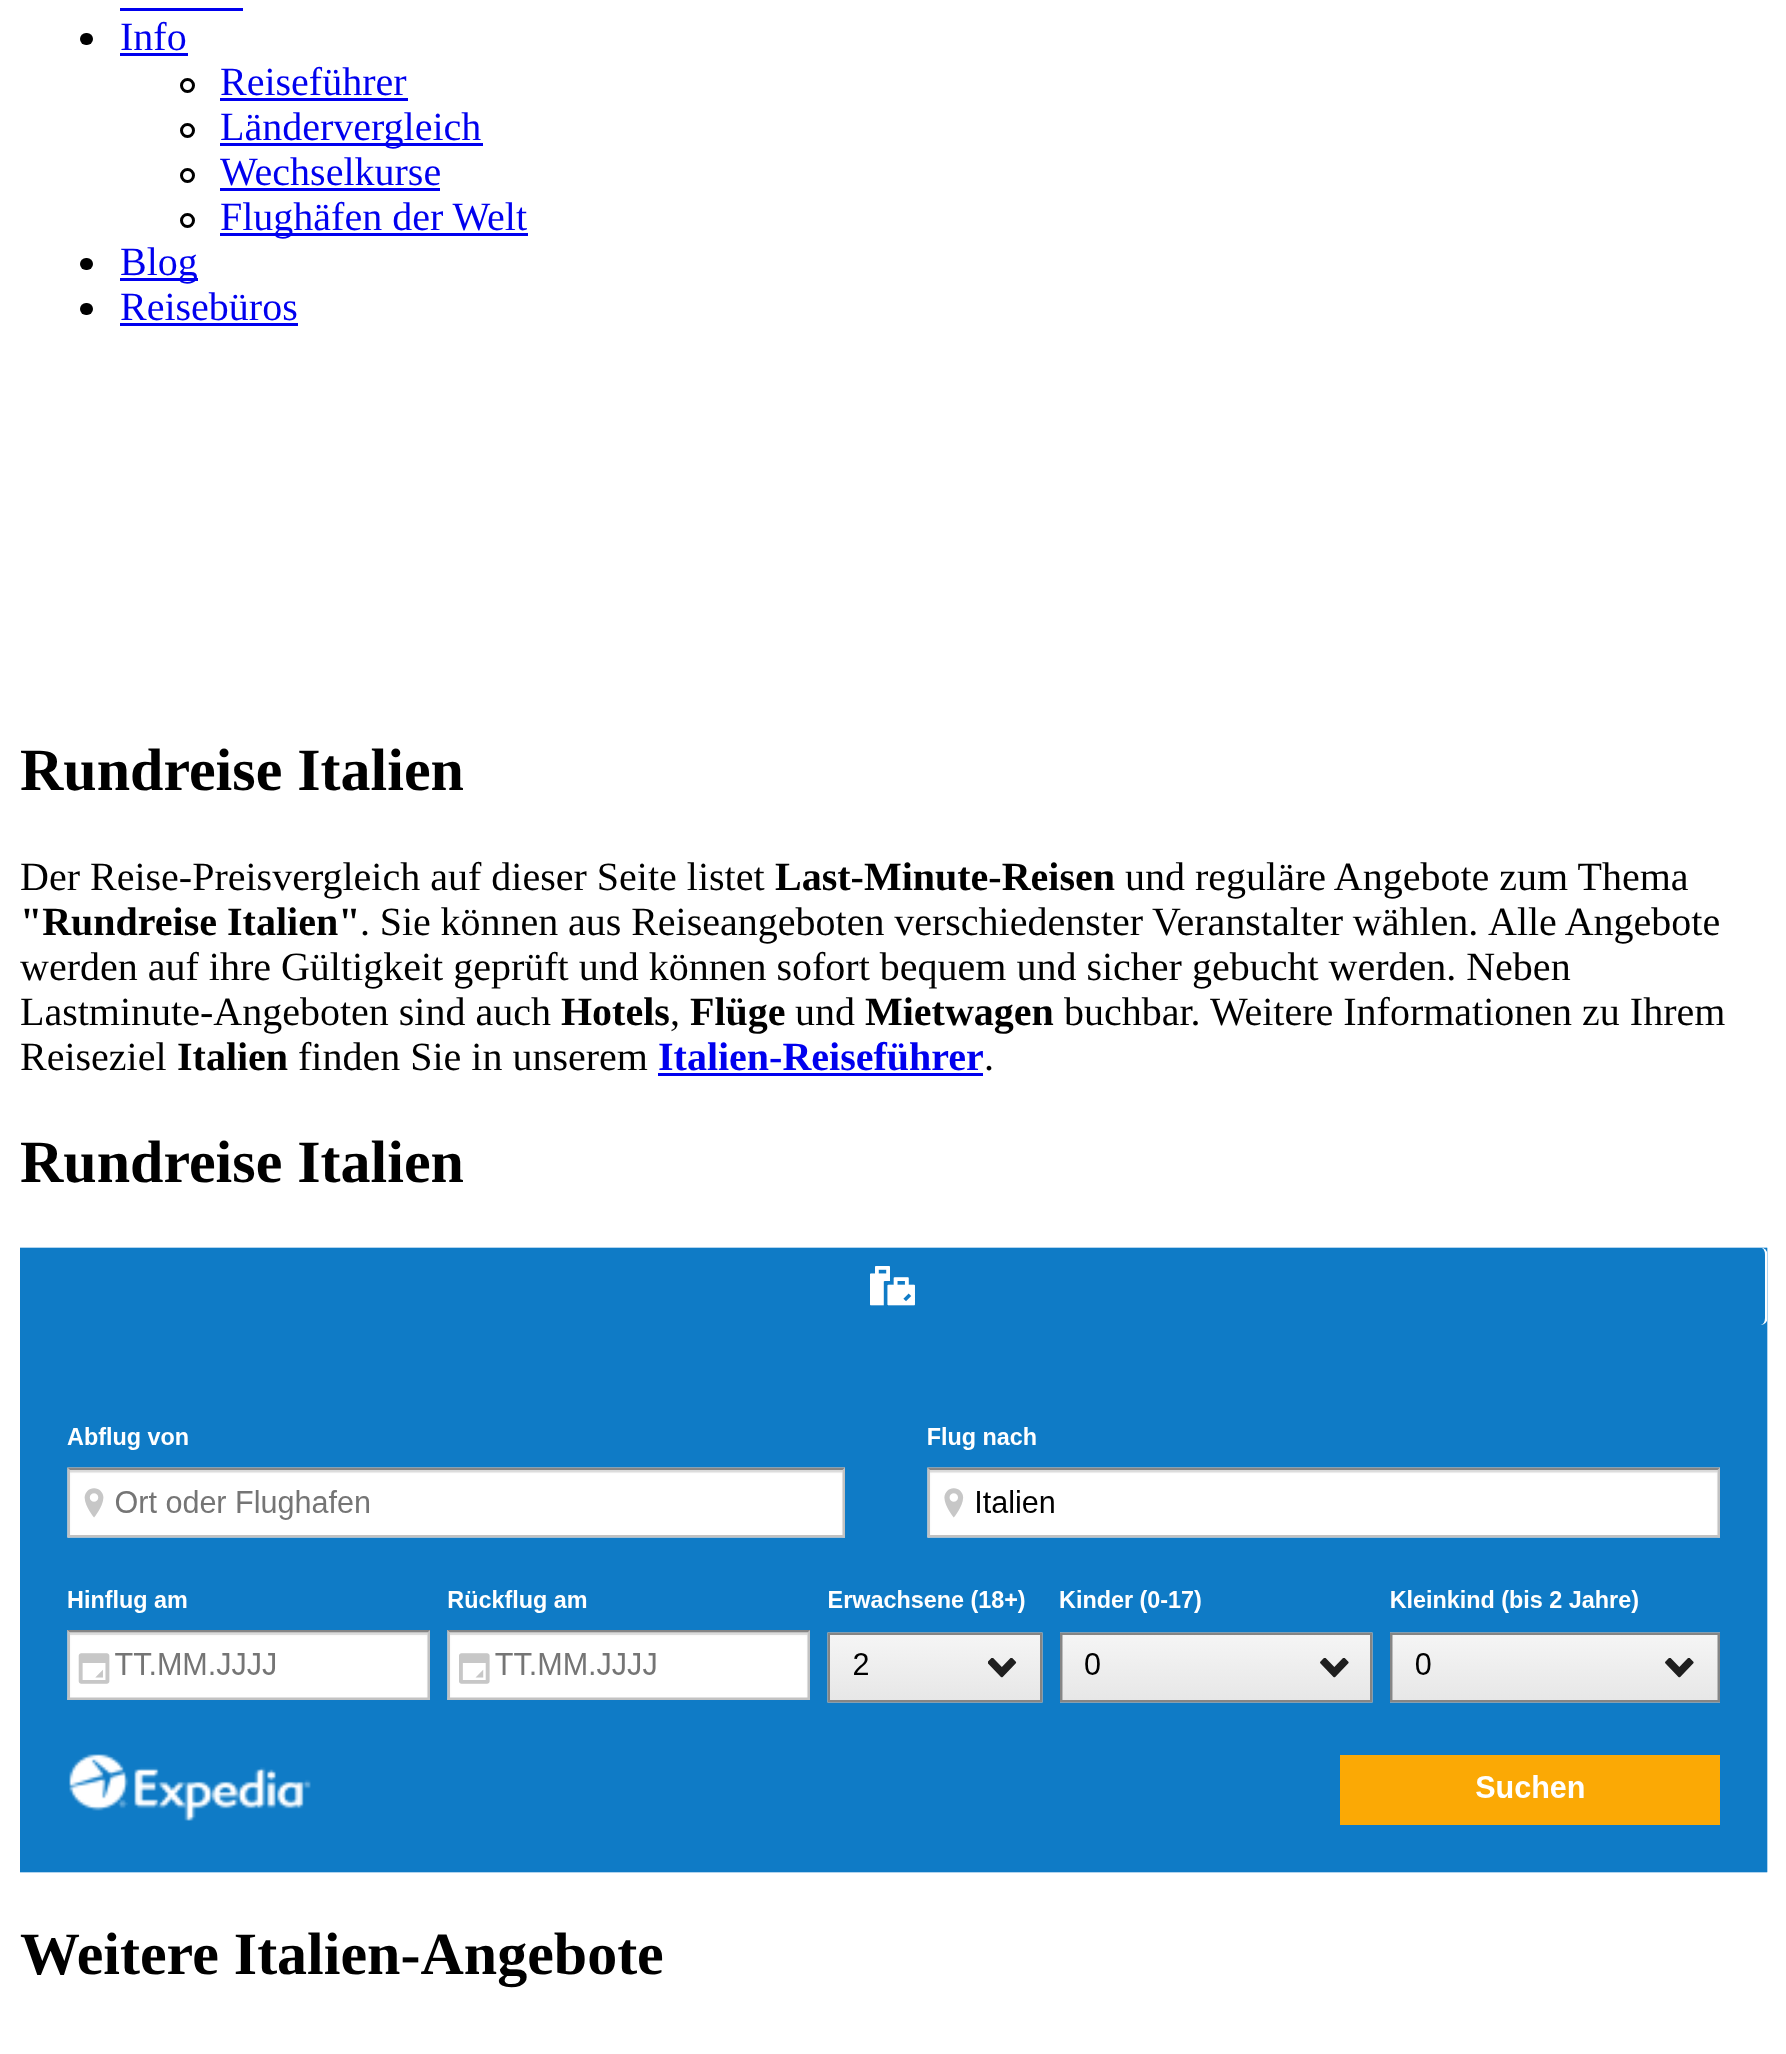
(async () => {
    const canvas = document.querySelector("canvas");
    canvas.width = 1786;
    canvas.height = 2054;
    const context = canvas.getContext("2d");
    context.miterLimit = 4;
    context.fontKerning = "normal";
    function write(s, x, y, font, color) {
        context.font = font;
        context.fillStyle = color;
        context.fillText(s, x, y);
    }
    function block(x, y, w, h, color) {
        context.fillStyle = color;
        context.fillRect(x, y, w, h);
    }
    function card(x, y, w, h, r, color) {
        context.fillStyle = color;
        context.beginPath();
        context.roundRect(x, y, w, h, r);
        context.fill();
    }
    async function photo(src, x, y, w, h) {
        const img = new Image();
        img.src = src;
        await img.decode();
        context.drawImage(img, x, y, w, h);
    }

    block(0, 0, 1786, 2054, "rgb(255, 255, 255)");
    block(120, 8, 123, 3, "rgb(0, 0, 238)");
    card(80, 33, 13, 12, 6, "rgb(0, 0, 0)");
    write("Info", 120, 50, "40px Liberation Serif", "rgb(0, 0, 238)");
    block(120, 53, 68, 3, "rgb(0, 0, 238)");
    context.beginPath();
    context.arc(187.5, 85.5, 6, 0, Math.PI * 2);
    context.strokeStyle = "rgb(0, 0, 0)";
    context.lineWidth = 3;
    context.stroke();
    write("Reiseführer", 220, 95, "40px Liberation Serif", "rgb(0, 0, 238)");
    block(220, 98, 188, 3, "rgb(0, 0, 238)");
    context.beginPath();
    context.arc(187.5, 130.5, 6, 0, Math.PI * 2);
    context.stroke();
    block(220, 143, 263, 3, "rgb(0, 0, 238)");
    write("Ländervergleich", 220, 140, "40px Liberation Serif", "rgb(0, 0, 238)");
    context.beginPath();
    context.arc(187.5, 175.5, 6, 0, Math.PI * 2);
    context.stroke();
    write("Wechselkurse", 220, 185, "40px Liberation Serif", "rgb(0, 0, 238)");
    block(220, 188, 220, 3, "rgb(0, 0, 238)");
    context.beginPath();
    context.arc(187.5, 220.5, 6, 0, Math.PI * 2);
    context.stroke();
    block(220, 233, 308, 3, "rgb(0, 0, 238)");
    write("Flughäfen der Welt", 220, 230, "40px Liberation Serif", "rgb(0, 0, 238)");
    card(80, 258, 13, 12, 6, "rgb(0, 0, 0)");
    block(120, 278, 78, 3, "rgb(0, 0, 238)");
    write("Blog", 120, 275, "40px Liberation Serif", "rgb(0, 0, 238)");
    card(80, 303, 13, 12, 6, "rgb(0, 0, 0)");
    write("Reisebüros", 120, 320, "40px Liberation Serif", "rgb(0, 0, 238)");
    block(120, 323, 178, 3, "rgb(0, 0, 238)");
    write("Rundreise Italien", 20, 790, "bold 60px Liberation Serif", "rgb(0, 0, 0)");
    write("Der Reise-Preisvergleich auf dieser Seite listet", 20, 890, "40px Liberation Serif", "rgb(0, 0, 0)");
    write("Last-Minute-Reisen", 775, 890, "bold 40px Liberation Serif", "rgb(0, 0, 0)");
    write("und reguläre Angebote zum Thema", 1125, 890, "40px Liberation Serif", "rgb(0, 0, 0)");
    write("\"Rundreise Italien\"", 20, 935, "bold 40px Liberation Serif", "rgb(0, 0, 0)");
    context.wordSpacing = "-0.25px";
    write(". Sie können aus Reiseangeboten verschiedenster Veranstalter wählen.", 360, 935, "40px Liberation Serif", "rgb(0, 0, 0)");
    context.wordSpacing = "0px";
    write("Alle Angebote", 1488, 935, "40px Liberation Serif", "rgb(0, 0, 0)");
    write("werden auf ihre Gültigkeit geprüft und können sofort bequem und sicher gebucht werden. Neben", 20, 980, "40px Liberation Serif", "rgb(0, 0, 0)");
    write("Lastminute-Angeboten sind auch", 20, 1025, "40px Liberation Serif", "rgb(0, 0, 0)");
    write("Hotels", 561, 1025, "bold 40px Liberation Serif", "rgb(0, 0, 0)");
    write(",", 670, 1025, "40px Liberation Serif", "rgb(0, 0, 0)");
    write("Flüge", 690, 1025, "bold 40px Liberation Serif", "rgb(0, 0, 0)");
    write("und", 795, 1025, "40px Liberation Serif", "rgb(0, 0, 0)");
    write("Mietwagen", 865, 1025, "bold 40px Liberation Serif", "rgb(0, 0, 0)");
    write("buchbar. Weitere Informationen zu Ihrem", 1064, 1025, "40px Liberation Serif", "rgb(0, 0, 0)");
    write("Reiseziel", 20, 1070, "40px Liberation Serif", "rgb(0, 0, 0)");
    write("Italien", 177, 1070, "bold 40px Liberation Serif", "rgb(0, 0, 0)");
    write("finden Sie in unserem", 298, 1070, "40px Liberation Serif", "rgb(0, 0, 0)");
    write("Italien-Reiseführer", 658, 1070, "bold 40px Liberation Serif", "rgb(0, 0, 238)");
    block(658, 1073, 325, 3, "rgb(0, 0, 238)");
    write(".", 984, 1070, "40px Liberation Serif", "rgb(0, 0, 0)");
    write("Rundreise Italien", 20, 1182, "bold 60px Liberation Serif", "rgb(0, 0, 0)");
    await photo("media/1.png", 20, 1247, 1748, 626);
    write("Weitere Italien-Angebote", 20, 1974, "bold 60px Liberation Serif", "rgb(0, 0, 0)");
})();
